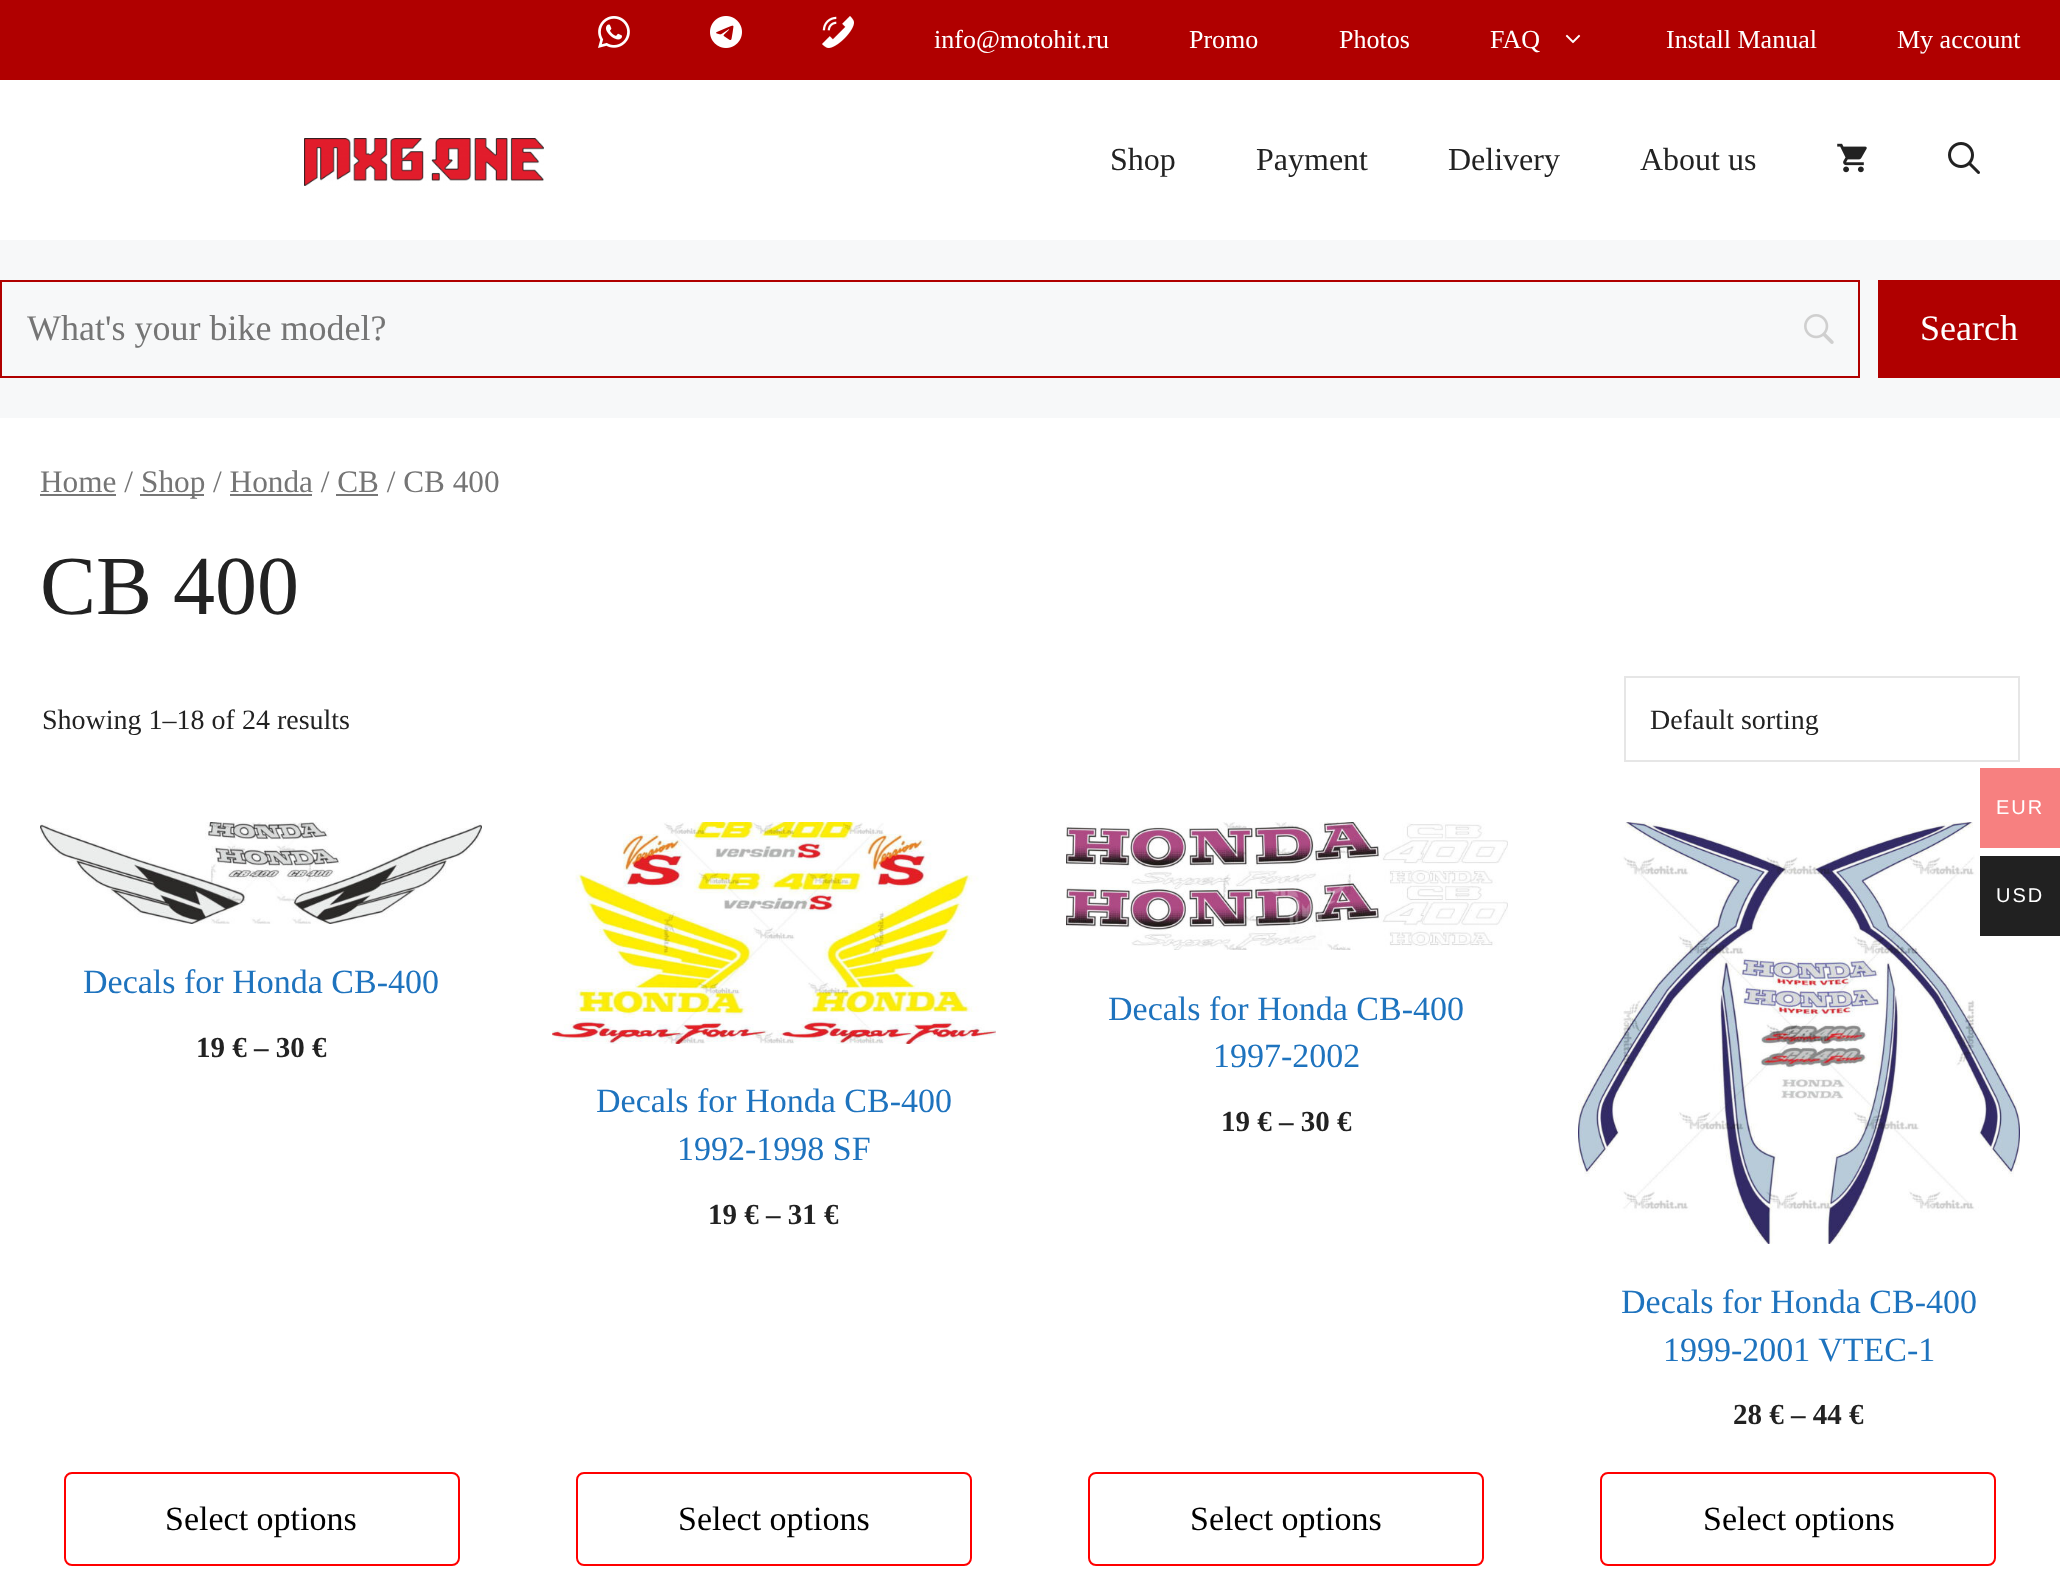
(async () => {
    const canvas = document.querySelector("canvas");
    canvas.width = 2060;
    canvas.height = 1596;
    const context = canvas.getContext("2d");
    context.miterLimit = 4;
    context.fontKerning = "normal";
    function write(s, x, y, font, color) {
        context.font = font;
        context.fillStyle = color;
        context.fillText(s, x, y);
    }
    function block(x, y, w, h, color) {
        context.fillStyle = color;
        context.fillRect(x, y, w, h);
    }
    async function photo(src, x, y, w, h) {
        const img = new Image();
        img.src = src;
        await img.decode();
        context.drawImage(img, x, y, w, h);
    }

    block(0, 0, 2060, 1596, "rgb(247, 248, 249)");
    block(0, 0, 2060, 80, "rgb(176, 0, 0)");
    await photo("media/1.png", 598, 16, 32, 32);
    await photo("media/2.png", 710, 16, 32, 32);
    await photo("media/3.png", 822, 16, 32, 32);
    write("info@motohit.ru", 934, 48, "26px Liberation Serif", "rgb(255, 255, 255)");
    write("Promo", 1189, 48, "26px Liberation Serif", "rgb(255, 255, 255)");
    write("Photos", 1339, 48, "26px Liberation Serif", "rgb(255, 255, 255)");
    write("FAQ", 1490, 48, "26px Liberation Serif", "rgb(255, 255, 255)");
    await photo("media/4.png", 1565, 34, 16, 10);
    write("Install Manual", 1666, 48, "26px Liberation Serif", "rgb(255, 255, 255)");
    write("My account", 1897, 48, "26px Liberation Serif", "rgb(255, 255, 255)");
    block(0, 80, 2060, 160, "rgb(255, 255, 255)");
    await photo("media/5.png", 304, 138, 240, 48);
    write("Shop", 1110, 170, "32px Liberation Serif", "rgb(34, 34, 34)");
    write("Payment", 1256, 170, "32px Liberation Serif", "rgb(34, 34, 34)");
    write("Delivery", 1448, 170, "32px Liberation Serif", "rgb(34, 34, 34)");
    write("About us", 1640, 170, "32px Liberation Serif", "rgb(34, 34, 34)");
    await photo("media/6.png", 1837, 143, 30, 30);
    await photo("media/7.png", 1948, 142, 32, 32);
    await photo("media/8.png", 1804, 314, 30, 30);
    context.strokeStyle = "rgb(176, 0, 0)";
    context.lineWidth = 2;
    context.strokeRect(1, 281, 1858, 96);
    write("What's your bike model?", 27, 340, "36px Liberation Serif", "rgb(117, 117, 117)");
    block(1878, 280, 182, 98, "rgb(176, 0, 0)");
    write("Search", 1920, 340, "36px Liberation Serif", "rgb(255, 255, 255)");
    block(0, 418, 2060, 1178, "rgb(255, 255, 255)");
    write("Home /", 40, 492, "31.25px Liberation Serif", "rgb(117, 117, 117)");
    block(40, 494, 76, 2, "rgb(118, 118, 118)");
    block(140, 494, 64, 2, "rgb(118, 118, 118)");
    write("Shop / Honda / CB / CB 400", 141, 492, "31.25px Liberation Serif", "rgb(117, 117, 117)");
    block(230, 494, 82, 2, "rgb(118, 118, 118)");
    block(336, 494, 42, 2, "rgb(118, 118, 118)");
    write("CB 400", 40, 614, "84px Liberation Serif", "rgb(34, 34, 34)");
    write("Showing 1–18 of 24 results", 42, 729, "28px Liberation Serif", "rgb(34, 34, 34)");
    context.strokeStyle = "rgb(230, 230, 230)";
    context.strokeRect(1625, 677, 394, 84);
    write("Default sorting", 1650, 729, "28px Liberation Serif", "rgb(34, 34, 34)");
    await photo("media/9.png", 40, 822, 442, 102);
    write("Decals for Honda CB-400", 83, 993, "34px Liberation Serif", "rgb(30, 115, 190)");
    write("19 € – 30 €", 196, 1057, "bold 29px Liberation Serif", "rgb(34, 34, 34)");
    context.beginPath();
    context.roundRect(65, 1473, 394, 92, 7);
    context.strokeStyle = "rgb(255, 0, 0)";
    context.stroke();
    write("Select options", 165, 1530, "34px Liberation Serif", "rgb(0, 0, 0)");
    await photo("media/10.png", 552, 822, 444, 222);
    write("Decals for Honda CB-400", 596, 1112, "34px Liberation Serif", "rgb(30, 115, 190)");
    write("1992-1998 SF", 677, 1160, "34px Liberation Serif", "rgb(30, 115, 190)");
    write("19 € – 31 €", 708, 1224, "bold 29px Liberation Serif", "rgb(34, 34, 34)");
    context.beginPath();
    context.roundRect(577, 1473, 394, 92, 7);
    context.stroke();
    write("Select options", 678, 1530, "34px Liberation Serif", "rgb(0, 0, 0)");
    await photo("media/11.png", 1066, 822, 442, 128);
    write("Decals for Honda CB-400", 1108, 1020, "34px Liberation Serif", "rgb(30, 115, 190)");
    write("1997-2002", 1213, 1067, "34px Liberation Serif", "rgb(30, 115, 190)");
    write("19 € – 30 €", 1221, 1131, "bold 29px Liberation Serif", "rgb(34, 34, 34)");
    context.beginPath();
    context.roundRect(1089, 1473, 394, 92, 7);
    context.stroke();
    write("Select options", 1190, 1530, "34px Liberation Serif", "rgb(0, 0, 0)");
    await photo("media/12.png", 1578, 822, 442, 422);
    write("Decals for Honda CB-400", 1621, 1313, "34px Liberation Serif", "rgb(30, 115, 190)");
    write("1999-2001 VTEC-1", 1663, 1361, "34px Liberation Serif", "rgb(30, 115, 190)");
    write("28 € – 44 €", 1733, 1424, "bold 29px Liberation Serif", "rgb(34, 34, 34)");
    context.beginPath();
    context.roundRect(1601, 1473, 394, 92, 7);
    context.stroke();
    write("Select options", 1703, 1530, "34px Liberation Serif", "rgb(0, 0, 0)");
    block(1980, 768, 80, 80, "rgb(247, 128, 128)");
    context.letterSpacing = "2px";
    write("EUR", 1996, 814, "20px Liberation Sans", "rgb(255, 255, 255)");
    block(1980, 856, 80, 80, "rgb(33, 33, 33)");
    write("USD", 1996, 902, "20px Liberation Sans", "rgb(255, 255, 255)");
})();
